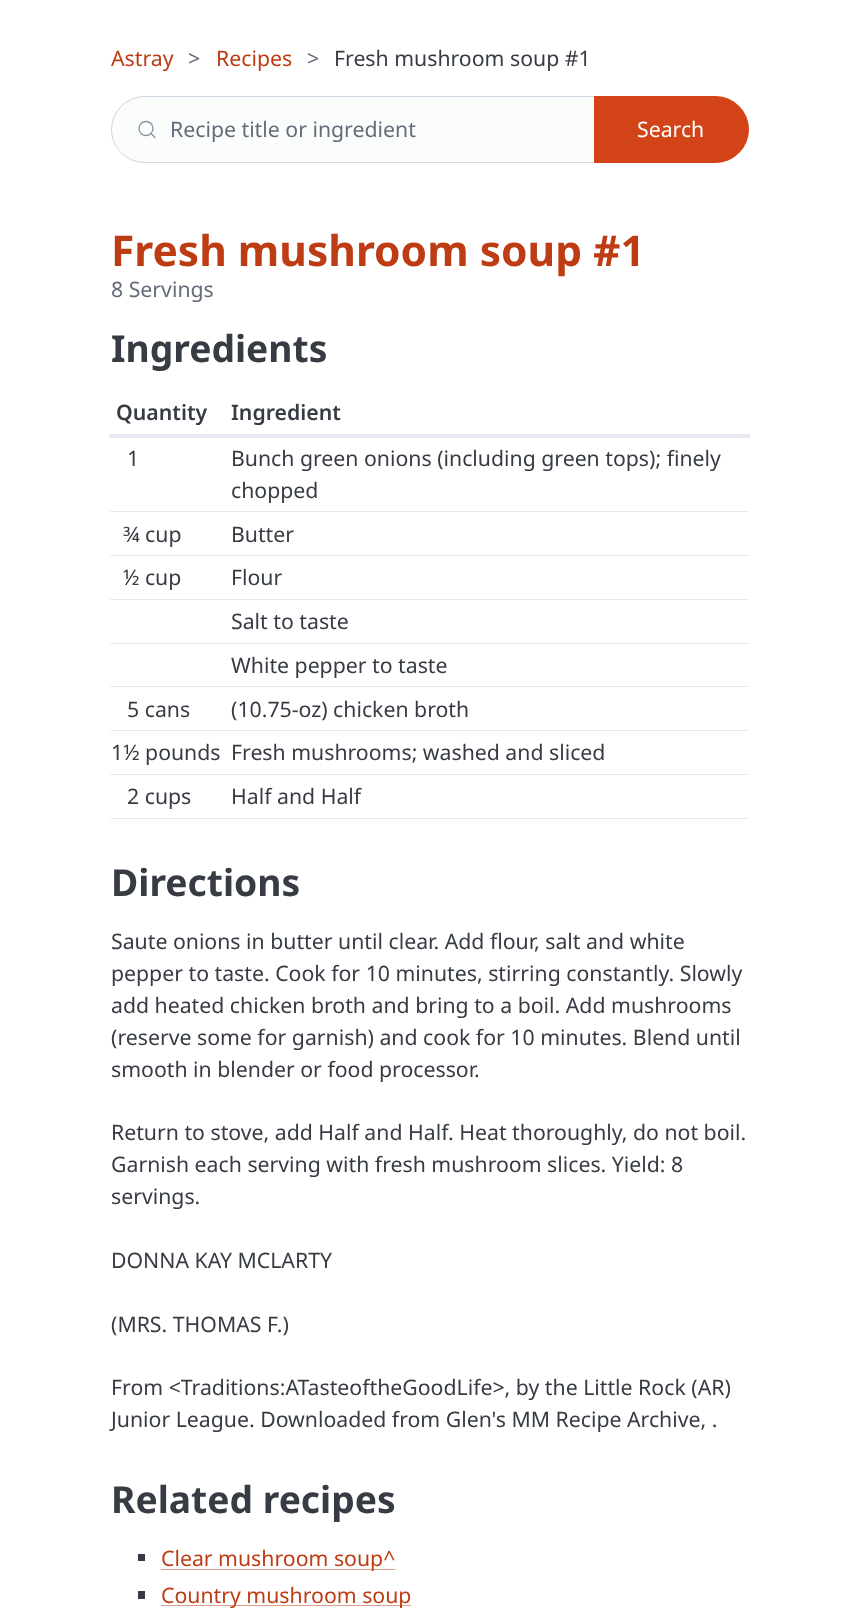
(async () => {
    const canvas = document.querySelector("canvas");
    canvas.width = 858;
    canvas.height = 1616;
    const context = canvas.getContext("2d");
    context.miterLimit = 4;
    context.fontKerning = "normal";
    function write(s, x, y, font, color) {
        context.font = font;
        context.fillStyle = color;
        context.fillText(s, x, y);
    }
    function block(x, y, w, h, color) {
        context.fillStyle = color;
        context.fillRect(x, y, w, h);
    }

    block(0, 0, 858, 1616, "rgb(255, 255, 255)");
    write("Astray", 111, 66, "21.25px Noto Sans", "rgb(189, 60, 19)");
    write(">", 188, 66, "21.25px Noto Sans", "rgb(100, 107, 121)");
    write("Recipes", 216, 66, "21.25px Noto Sans", "rgb(189, 60, 19)");
    write(">", 307, 66, "21.25px Noto Sans", "rgb(100, 107, 121)");
    write("Fresh mushroom soup #1", 334, 66, "21.25px Noto Sans", "rgb(55, 60, 68)");
    context.fillStyle = "rgb(251, 252, 252)";
    context.beginPath();
    context.roundRect(111, 96, 484, 67, [33.5, 0, 0, 33.5]);
    context.fill();
    context.beginPath();
    context.arc(146, 128.5, 7, 0, Math.PI * 2);
    context.strokeStyle = "rgb(136, 145, 164)";
    context.lineWidth = 1.3;
    context.stroke();
    context.beginPath();
    context.moveTo(155, 137.5);
    context.lineTo(151, 133.5);
    context.lineCap = "round";
    context.lineJoin = "round";
    context.stroke();
    context.beginPath();
    context.roundRect(111.5, 96.5, 483, 66, [33, 0, 0, 33]);
    context.strokeStyle = "rgb(207, 213, 226)";
    context.lineWidth = 1;
    context.lineJoin = "miter";
    context.stroke();
    write("Recipe title or ingredient", 170, 137, "21.25px Noto Sans", "rgb(100, 107, 121)");
    context.fillStyle = "rgb(210, 67, 23)";
    context.beginPath();
    context.roundRect(594.5, 96.5, 154, 66, [0, 33, 33, 0]);
    context.fill();
    context.strokeStyle = "rgb(210, 67, 23)";
    context.stroke();
    write("Search", 637, 137, "21.25px Noto Sans", "rgb(255, 255, 255)");
    write("Fresh mushroom soup #1", 111, 266, "bold 42.5px Noto Sans", "rgb(189, 60, 19)");
    write("8 Servings", 111, 297, "21.25px Noto Sans", "rgb(100, 107, 121)");
    write("Ingredients", 111, 362, "bold 37.25px Noto Sans", "rgb(55, 60, 68)");
    write("Quantity", 116, 420, "600 21.25px Noto Sans", "rgb(55, 60, 68)");
    block(109, 434, 641, 4, "rgb(231, 234, 240)");
    write("Ingredient", 231, 420, "600 21.25px Noto Sans", "rgb(55, 60, 68)");
    write("1", 127, 466, "21.25px Noto Sans", "rgb(55, 60, 68)");
    block(110, 511, 639, 1, "rgb(231, 234, 240)");
    write("Bunch green onions (including green tops); finely", 231, 466, "21.25px Noto Sans", "rgb(55, 60, 68)");
    write("chopped", 231, 498, "21.25px Noto Sans", "rgb(55, 60, 68)");
    write("¾ cup", 123, 542, "21.25px Noto Sans", "rgb(55, 60, 68)");
    block(110, 555, 639, 1, "rgb(231, 234, 240)");
    write("Butter", 231, 542, "21.25px Noto Sans", "rgb(55, 60, 68)");
    write("½ cup", 123, 585, "21.25px Noto Sans", "rgb(55, 60, 68)");
    block(110, 599, 639, 1, "rgb(231, 234, 240)");
    write("Flour", 231, 585, "21.25px Noto Sans", "rgb(55, 60, 68)");
    block(110, 643, 639, 1, "rgb(231, 234, 240)");
    write("Salt to taste", 231, 629, "21.25px Noto Sans", "rgb(55, 60, 68)");
    block(110, 686, 639, 1, "rgb(231, 234, 240)");
    write("White pepper to taste", 231, 673, "21.25px Noto Sans", "rgb(55, 60, 68)");
    write("5 cans", 127, 717, "21.25px Noto Sans", "rgb(55, 60, 68)");
    block(110, 730, 639, 1, "rgb(231, 234, 240)");
    write("(10.75-oz) chicken broth", 231, 717, "21.25px Noto Sans", "rgb(55, 60, 68)");
    write("1½ pounds", 111, 760, "21.25px Noto Sans", "rgb(55, 60, 68)");
    block(110, 774, 639, 1, "rgb(231, 234, 240)");
    write("Fresh mushrooms; washed and sliced", 231, 760, "21.25px Noto Sans", "rgb(55, 60, 68)");
    write("2 cups", 127, 804, "21.25px Noto Sans", "rgb(55, 60, 68)");
    block(110, 818, 639, 1, "rgb(231, 234, 240)");
    write("Half and Half", 231, 804, "21.25px Noto Sans", "rgb(55, 60, 68)");
    write("Directions", 111, 896, "bold 37.25px Noto Sans", "rgb(55, 60, 68)");
    write("Saute onions in butter until clear. Add flour, salt and white", 111, 949, "21.25px Noto Sans", "rgb(55, 60, 68)");
    write("pepper to taste. Cook for 10 minutes, stirring constantly. Slowly", 111, 981, "21.25px Noto Sans", "rgb(55, 60, 68)");
    write("add heated chicken broth and bring to a boil. Add mushrooms", 111, 1013, "21.25px Noto Sans", "rgb(55, 60, 68)");
    write("(reserve some for garnish) and cook for 10 minutes. Blend until", 111, 1045, "21.25px Noto Sans", "rgb(55, 60, 68)");
    write("smooth in blender or food processor.", 111, 1077, "21.25px Noto Sans", "rgb(55, 60, 68)");
    write("Return to stove, add Half and Half. Heat thoroughly, do not boil.", 111, 1140, "21.25px Noto Sans", "rgb(55, 60, 68)");
    write("Garnish each serving with fresh mushroom slices. Yield: 8", 111, 1172, "21.25px Noto Sans", "rgb(55, 60, 68)");
    write("servings.", 111, 1204, "21.25px Noto Sans", "rgb(55, 60, 68)");
    write("DONNA KAY MCLARTY", 111, 1268, "21.25px Noto Sans", "rgb(55, 60, 68)");
    write("(MRS. THOMAS F.)", 111, 1332, "21.25px Noto Sans", "rgb(55, 60, 68)");
    write("From <Traditions:ATasteoftheGoodLife>, by the Little Rock (AR)", 111, 1395, "21.25px Noto Sans", "rgb(55, 60, 68)");
    write("Junior League. Downloaded from Glen's MM Recipe Archive, .", 111, 1427, "21.25px Noto Sans", "rgb(55, 60, 68)");
    write("Related recipes", 111, 1513, "bold 37.25px Noto Sans", "rgb(55, 60, 68)");
    block(138, 1554, 7, 7, "rgb(55, 60, 68)");
    block(161, 1569, 234, 1, "rgb(222, 158, 137)");
    write("Clear mushroom soup^", 161, 1566, "21.25px Noto Sans", "rgb(189, 60, 19)");
    block(138, 1591, 7, 8, "rgb(55, 60, 68)");
    block(161, 1605, 250, 1, "rgb(222, 158, 137)");
    write("Country mushroom soup", 161, 1603, "21.25px Noto Sans", "rgb(189, 60, 19)");
})();
